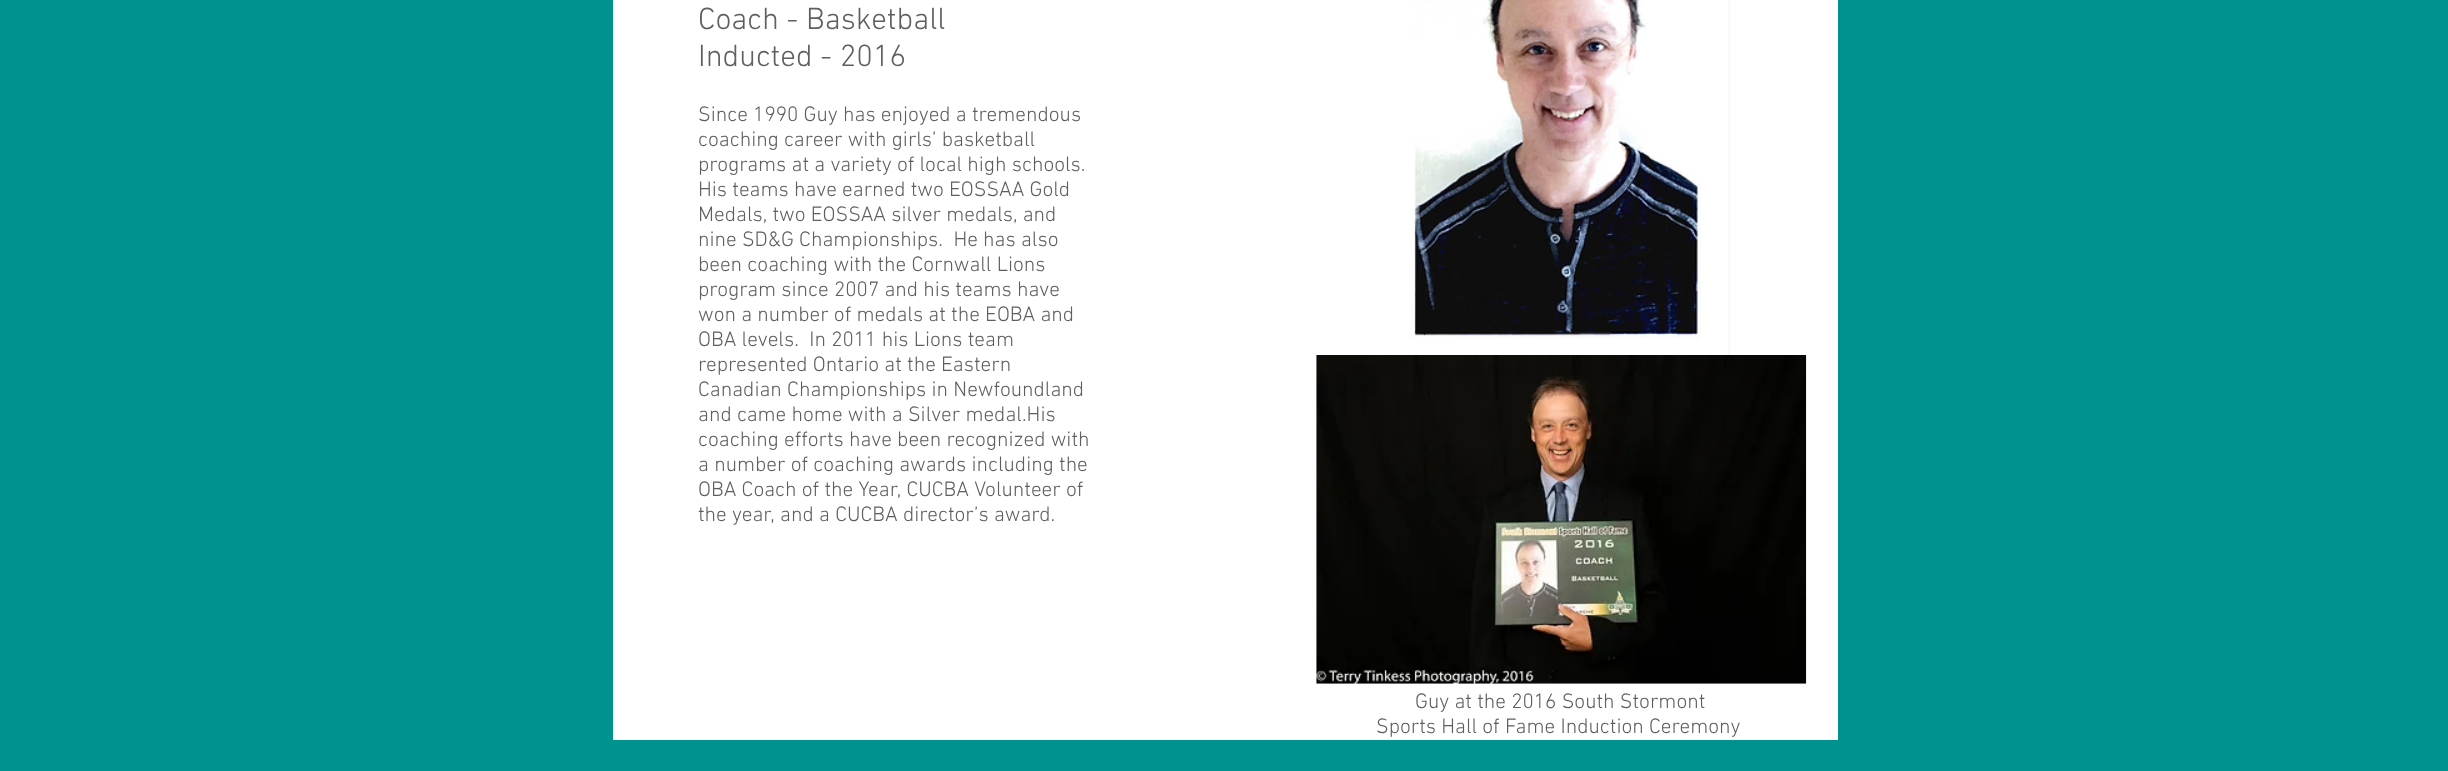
(async () => {
    const canvas = document.querySelector("canvas");
    canvas.width = 2448;
    canvas.height = 771;
    const context = canvas.getContext("2d");
    context.miterLimit = 4;
    context.fontKerning = "normal";
    function write(s, x, y, font, color) {
        context.font = font;
        context.fillStyle = color;
        context.fillText(s, x, y);
    }
    function block(x, y, w, h, color) {
        context.fillStyle = color;
        context.fillRect(x, y, w, h);
    }
    async function photo(src, x, y, w, h) {
        const img = new Image();
        img.src = src;
        await img.decode();
        context.drawImage(img, x, y, w, h);
    }

    block(0, 0, 2448, 771, "rgb(0, 146, 143)");
    block(613, 0, 1225, 740, "rgb(255, 255, 255)");
    write("Coach - Basketball", 698, 29, "300 31.25px 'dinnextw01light'", "rgb(96, 94, 94)");
    write("Inducted - 2016", 698, 66, "300 31.25px 'dinnextw01light'", "rgb(96, 94, 94)");
    await photo("media/1.png", 1393, 0, 337, 355);
    write("Since 1990 Guy has enjoyed a tremendous", 698, 121, "300 21.25px 'dinnextw01light'", "rgb(96, 94, 94)");
    write("coaching career with girls’ basketball", 698, 146, "300 21.25px 'dinnextw01light'", "rgb(96, 94, 94)");
    write("programs at a variety of local high schools.", 698, 171, "300 21.25px 'dinnextw01light'", "rgb(96, 94, 94)");
    write("His teams have earned two EOSSAA Gold", 698, 196, "300 21.25px 'dinnextw01light'", "rgb(96, 94, 94)");
    write("Medals, two EOSSAA silver medals, and", 698, 221, "300 21.25px 'dinnextw01light'", "rgb(96, 94, 94)");
    write("nine SD&G Championships.  He has also", 698, 246, "300 21.25px 'dinnextw01light'", "rgb(96, 94, 94)");
    write("been coaching with the Cornwall Lions", 698, 271, "300 21.25px 'dinnextw01light'", "rgb(96, 94, 94)");
    write("program since 2007 and his teams have", 698, 296, "300 21.25px 'dinnextw01light'", "rgb(96, 94, 94)");
    write("won a number of medals at the EOBA and", 698, 321, "300 21.25px 'dinnextw01light'", "rgb(96, 94, 94)");
    write("OBA levels.  In 2011 his Lions team", 698, 346, "300 21.25px 'dinnextw01light'", "rgb(96, 94, 94)");
    write("represented Ontario at the Eastern", 698, 371, "300 21.25px 'dinnextw01light'", "rgb(96, 94, 94)");
    write("Canadian Championships in Newfoundland", 698, 396, "300 21.25px 'dinnextw01light'", "rgb(96, 94, 94)");
    write("and came home with a Silver medal.His", 698, 421, "300 21.25px 'dinnextw01light'", "rgb(96, 94, 94)");
    write("coaching efforts have been recognized with", 698, 446, "300 21.25px 'dinnextw01light'", "rgb(96, 94, 94)");
    write("a number of coaching awards including the", 698, 471, "300 21.25px 'dinnextw01light'", "rgb(96, 94, 94)");
    write("OBA Coach of the Year, CUCBA Volunteer of", 698, 496, "300 21.25px 'dinnextw01light'", "rgb(96, 94, 94)");
    write("the year, and a CUCBA director’s award.", 698, 521, "300 21.25px 'dinnextw01light'", "rgb(96, 94, 94)");
    await photo("media/2.png", 1316, 355, 491, 329);
    write("Guy at the 2016 South Stormont", 1415, 708, "300 21.25px 'dinnextw01light'", "rgb(96, 94, 94)");
    write("Sports Hall of Fame Induction Ceremony", 1376, 733, "300 21.25px 'dinnextw01light'", "rgb(96, 94, 94)");
})();
